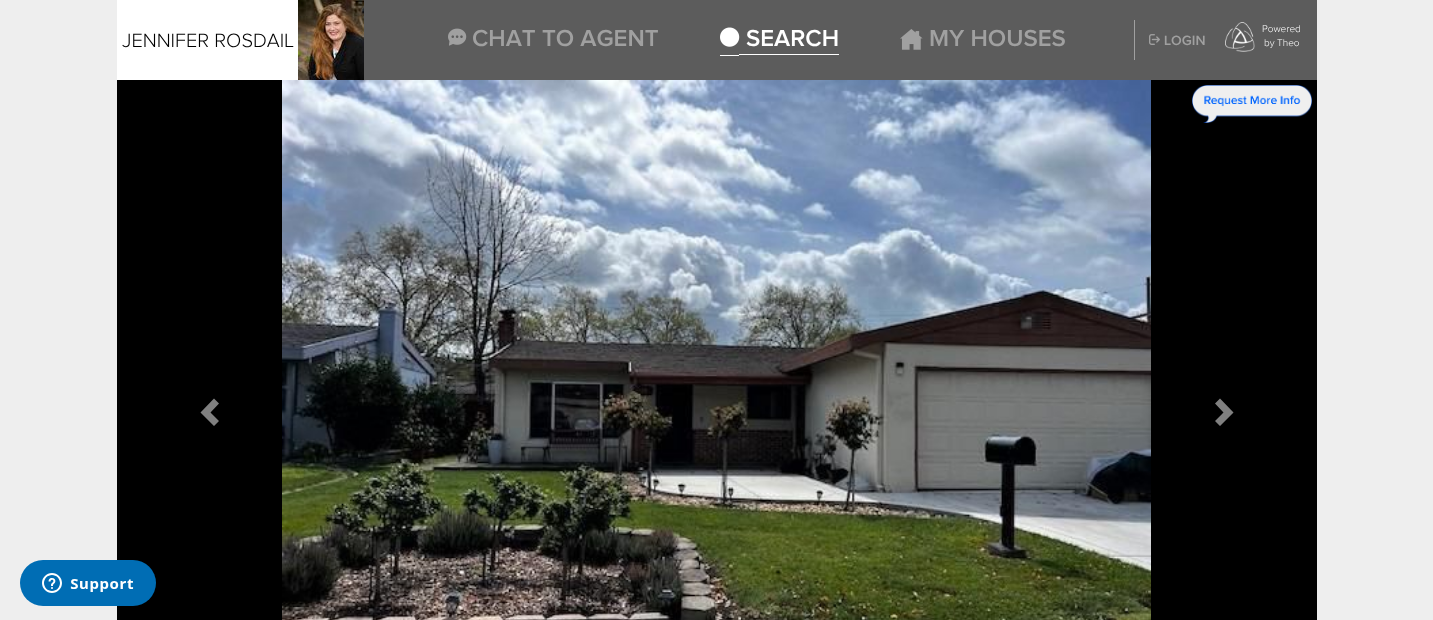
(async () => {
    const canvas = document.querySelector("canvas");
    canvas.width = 1433;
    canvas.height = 620;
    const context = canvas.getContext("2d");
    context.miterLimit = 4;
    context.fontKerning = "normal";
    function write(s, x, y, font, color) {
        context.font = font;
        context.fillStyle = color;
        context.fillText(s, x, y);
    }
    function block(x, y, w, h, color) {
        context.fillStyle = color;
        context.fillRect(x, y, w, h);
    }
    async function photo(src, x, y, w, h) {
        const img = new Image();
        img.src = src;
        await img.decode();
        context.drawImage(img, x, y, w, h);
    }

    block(0, 0, 1433, 620, "rgb(238, 238, 238)");
    block(364, 0, 953, 80, "rgb(92, 92, 92)");
    block(117, 0, 181, 80, "rgb(255, 255, 255)");
    write("JENNIFER ROSDAIL", 122, 47, "300 20px Proxima Nova", "rgb(0, 0, 0)");
    await photo("media/1.png", 298, 0, 66, 80);
    await photo("media/2.png", 448, 28, 19, 18);
    write("CHAT TO AGENT", 472, 46, "600 24px Proxima Nova", "rgb(160, 160, 160)");
    block(720, 55, 19, 1, "rgb(255, 255, 255)");
    block(739, 54, 100, 1, "rgb(255, 255, 255)");
    await photo("media/3.png", 720, 27, 20, 20);
    write("SEARCH", 746, 46, "600 24px Proxima Nova", "rgb(255, 255, 255)");
    await photo("media/4.png", 900, 29, 23, 21);
    write("MY HOUSES", 929, 46, "600 24px Proxima Nova", "rgb(160, 160, 160)");
    block(1134, 20, 1, 40, "rgb(160, 160, 160)");
    await photo("media/5.png", 1149, 34, 11, 11);
    write("LOGIN", 1164, 45, "600 14px Proxima Nova", "rgb(160, 160, 160)");
    await photo("media/6.png", 1225, 22, 30, 30);
    write("Powered", 1262, 32, "300 10px Proxima Nova", "rgb(255, 255, 255)");
    write("by Theo", 1264, 46, "300 10px Proxima Nova", "rgb(255, 255, 255)");
    block(117, 80, 1200, 540, "rgb(0, 0, 0)");
    context.fillStyle = "rgb(128, 128, 128)";
    context.beginPath();
    context.moveTo(219, 403.5);
    context.lineTo(210.5, 412.5);
    context.lineTo(219, 421);
    context.lineTo(214, 426);
    context.lineTo(200.5, 412.5);
    context.lineTo(214, 398.5);
    context.closePath();
    context.fill();
    await photo("media/7.png", 282, 80, 869, 540);
    context.beginPath();
    context.moveTo(1233.5, 412.5);
    context.lineTo(1220, 426);
    context.lineTo(1215, 421);
    context.lineTo(1223.5, 412.5);
    context.lineTo(1215, 403.5);
    context.lineTo(1220, 398.5);
    context.closePath();
    context.fill();
    await photo("media/8.png", 1192, 85, 120, 38);
    await photo("media/9.png", 20, 560, 136, 46);
})();
